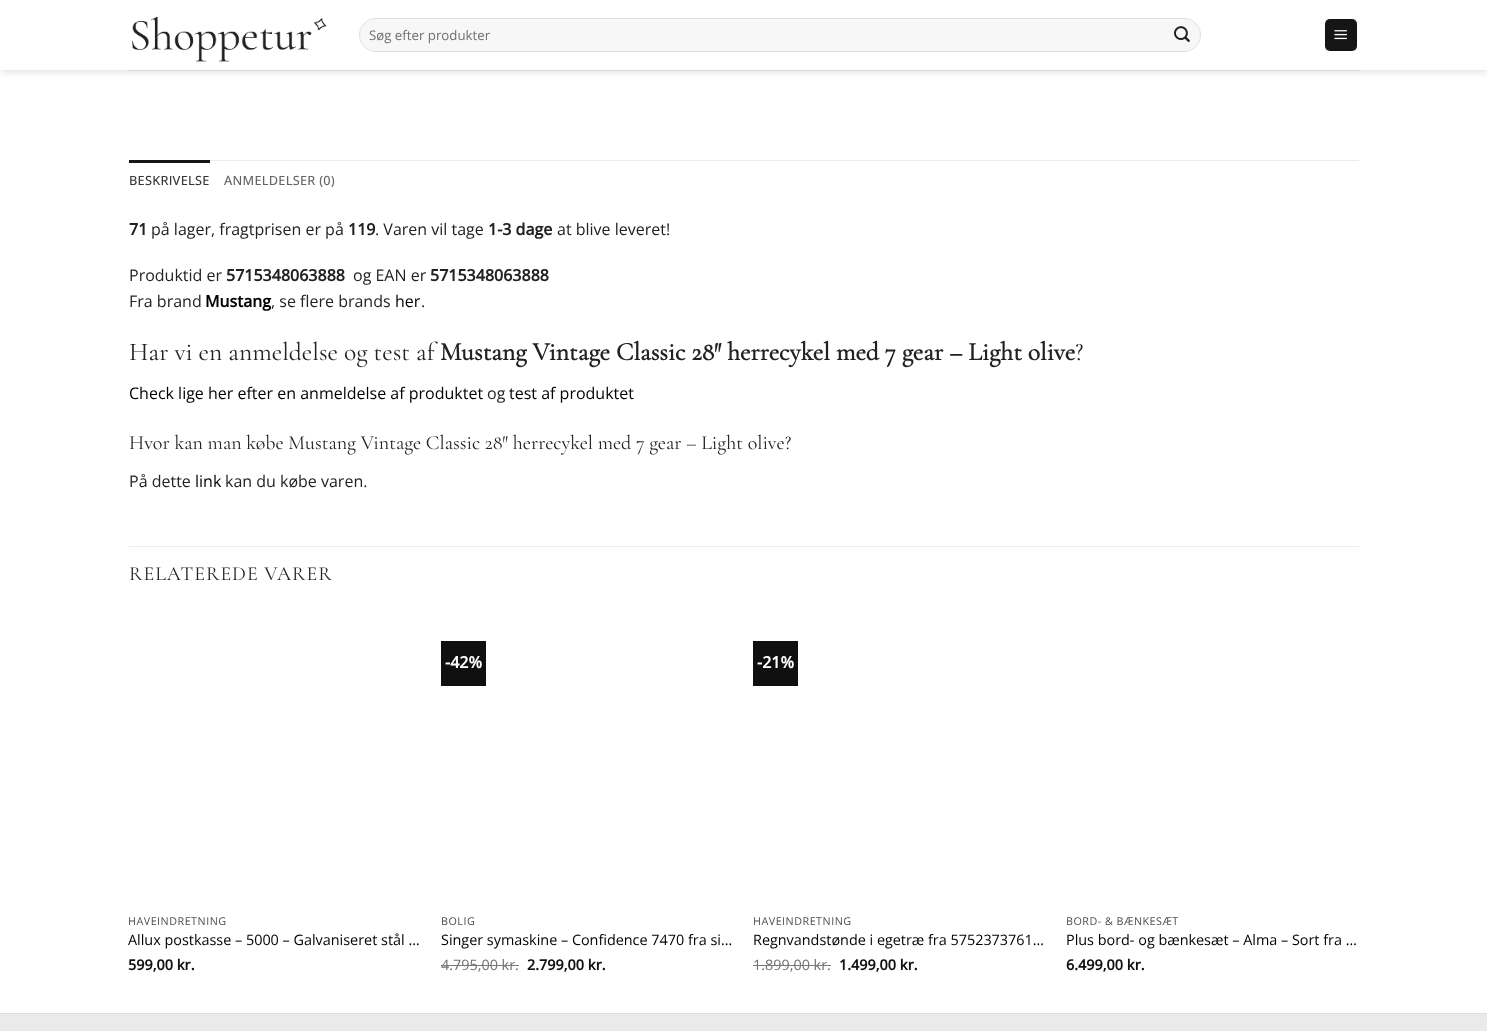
(async () => {
    const canvas = document.querySelector("canvas");
    canvas.width = 1487;
    canvas.height = 1031;
    const context = canvas.getContext("2d");
    context.miterLimit = 4;
    context.fontKerning = "normal";
    function write(s, x, y, font, color) {
        context.font = font;
        context.fillStyle = color;
        context.fillText(s, x, y);
    }
    function block(x, y, w, h, color) {
        context.fillStyle = color;
        context.fillRect(x, y, w, h);
    }
    function card(x, y, w, h, r, color) {
        context.fillStyle = color;
        context.beginPath();
        context.roundRect(x, y, w, h, r);
        context.fill();
    }
    async function photo(src, x, y, w, h) {
        const img = new Image();
        img.src = src;
        await img.decode();
        context.drawImage(img, x, y, w, h);
    }

    block(0, 0, 1487, 1031, "rgb(255, 255, 255)");
    context.save();
    context.beginPath();
    context.rect(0, 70, 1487, 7);
    context.clip();
    context.fillStyle = "rgba(0, 0, 0, 0.15)";
    context.filter = "blur(5px)";
    context.beginPath();
    context.rect(1, 1, 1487, 70);
    context.fill();
    context.filter = "none";
    context.restore();
    await photo("media/1.png", 132, 17, 195, 45);
    card(359, 18, 842, 34, 17, "rgb(247, 247, 247)");
    context.beginPath();
    context.roundRect(359.5, 18.5, 841, 33, 16.5);
    context.strokeStyle = "rgba(0, 0, 0, 0.09)";
    context.stroke();
    write("Søg efter produkter", 369, 40, "13.25px Open Sans", "rgb(112, 112, 112)");
    await photo("media/2.png", 1174, 26, 16, 16);
    card(1325, 19, 32, 32, 5, "rgb(22, 22, 22)");
    context.strokeStyle = "rgba(0, 0, 0, 0.05)";
    context.strokeRect(1325.5, 19.5, 31, 31);
    await photo("media/3.png", 1334, 30, 13, 10);
    block(129, 70, 1230, 1, "rgb(214, 214, 214)");
    block(210, 160, 1149, 1, "rgb(236, 236, 236)");
    block(129, 160, 81, 3, "rgb(22, 22, 22)");
    context.letterSpacing = "0.25px";
    write("BESKRIVELSE", 129, 185, "500 12.75px Open Sans", "rgb(54, 54, 54)");
    write("ANMELDELSER (0)", 224, 185, "500 12.75px Open Sans", "rgb(101, 101, 101)");
    context.letterSpacing = "0px";
    write("71", 129, 235, "bold 16px Open Sans", "rgb(34, 34, 34)");
    write("på lager, fragtprisen er på", 151, 235, "16px Open Sans", "rgb(34, 34, 34)");
    write("119", 348, 235, "bold 16px Open Sans", "rgb(34, 34, 34)");
    write(". Varen vil tage", 375, 235, "16px Open Sans", "rgb(34, 34, 34)");
    write("1-3 dage", 488, 235, "bold 16px Open Sans", "rgb(34, 34, 34)");
    write("at blive leveret!", 557, 235, "16px Open Sans", "rgb(34, 34, 34)");
    write("Produktid er", 129, 281, "16px Open Sans", "rgb(34, 34, 34)");
    write("5715348063888", 226, 281, "bold 16px Open Sans", "rgb(34, 34, 34)");
    write("og EAN er", 353, 281, "16px Open Sans", "rgb(34, 34, 34)");
    write("5715348063888", 430, 281, "bold 16px Open Sans", "rgb(34, 34, 34)");
    write("Fra brand", 129, 307, "16px Open Sans", "rgb(34, 34, 34)");
    write("Mustang", 205, 307, "bold 16px Open Sans", "rgb(0, 0, 0)");
    write(", se flere brands", 271, 307, "16px Open Sans", "rgb(34, 34, 34)");
    write("her", 395, 307, "16px Open Sans", "rgb(0, 0, 0)");
    write(".", 421, 307, "16px Open Sans", "rgb(34, 34, 34)");
    write("Har vi en anmeldelse og test af", 129, 360, "300 25.6px Cormorant Garamond", "rgb(34, 34, 34)");
    write("Mustang Vintage Classic 28″ herrecykel med 7 gear – Light olive", 440, 360, "bold 25.6px Cormorant Garamond", "rgb(34, 34, 34)");
    write("?", 1075, 360, "300 25.6px Cormorant Garamond", "rgb(34, 34, 34)");
    write("Check lige her efter en anmeldelse af produktet", 129, 399, "16px Open Sans", "rgb(0, 0, 0)");
    write("og", 487, 399, "16px Open Sans", "rgb(34, 34, 34)");
    write("test af produktet", 509, 399, "16px Open Sans", "rgb(0, 0, 0)");
    write("Hvor kan man købe Mustang Vintage Classic 28″ herrecykel med 7 gear – Light olive?", 129, 449, "300 20px Cormorant Garamond", "rgb(34, 34, 34)");
    write("På dette", 129, 487, "16px Open Sans", "rgb(34, 34, 34)");
    write("link", 195, 487, "16px Open Sans", "rgb(0, 0, 0)");
    write("kan du købe varen.", 225, 487, "16px Open Sans", "rgb(34, 34, 34)");
    block(129, 546, 1230, 1, "rgb(236, 236, 236)");
    context.letterSpacing = "1px";
    write("RELATEREDE VARER", 129, 580, "300 20px Cormorant Garamond", "rgb(34, 34, 34)");
    context.letterSpacing = "0.5px";
    write("HAVEINDRETNING", 128, 925, "10.75px Open Sans", "rgb(78, 78, 78)");
    context.letterSpacing = "0px";
    write("Allux postkasse – 5000 – Galvaniseret stål …", 128, 945, "14.4px Open Sans", "rgb(0, 0, 0)");
    write("599,00 kr.", 128, 970, "bold 14.4px Open Sans", "rgb(17, 17, 17)");
    block(441, 641, 45, 45, "rgb(15, 15, 15)");
    write("-42%", 445, 668, "bold 16px Open Sans", "rgb(255, 255, 255)");
    context.letterSpacing = "0.5px";
    write("BOLIG", 441, 925, "10.75px Open Sans", "rgb(78, 78, 78)");
    context.letterSpacing = "0px";
    write("Singer symaskine – Confidence 7470 fra si…", 441, 945, "14.4px Open Sans", "rgb(0, 0, 0)");
    write("4.795,00 kr.", 441, 970, "14.4px Open Sans", "rgb(112, 112, 112)");
    block(441, 965, 78, 1, "rgb(122, 122, 122)");
    write("2.799,00 kr.", 527, 970, "bold 14.4px Open Sans", "rgb(17, 17, 17)");
    block(753, 641, 45, 45, "rgb(15, 15, 15)");
    write("-21%", 757, 668, "bold 16px Open Sans", "rgb(255, 255, 255)");
    context.letterSpacing = "0.5px";
    write("HAVEINDRETNING", 753, 925, "10.75px Open Sans", "rgb(78, 78, 78)");
    context.letterSpacing = "0px";
    write("Regnvandstønde i egetræ fra 5752373761…", 753, 945, "14.4px Open Sans", "rgb(0, 0, 0)");
    write("1.899,00 kr.", 753, 970, "14.4px Open Sans", "rgb(112, 112, 112)");
    block(753, 965, 78, 1, "rgb(122, 122, 122)");
    write("1.499,00 kr.", 839, 970, "bold 14.4px Open Sans", "rgb(17, 17, 17)");
    context.letterSpacing = "0.5px";
    write("BORD- & BÆNKESÆT", 1066, 925, "10.75px Open Sans", "rgb(78, 78, 78)");
    context.letterSpacing = "0px";
    write("Plus bord- og bænkesæt – Alma – Sort fra …", 1066, 945, "14.4px Open Sans", "rgb(0, 0, 0)");
    write("6.499,00 kr.", 1066, 970, "bold 14.4px Open Sans", "rgb(17, 17, 17)");
    block(0, 1014, 1487, 17, "rgb(234, 234, 234)");
    block(0, 1013, 1487, 1, "rgb(222, 222, 222)");
})();
